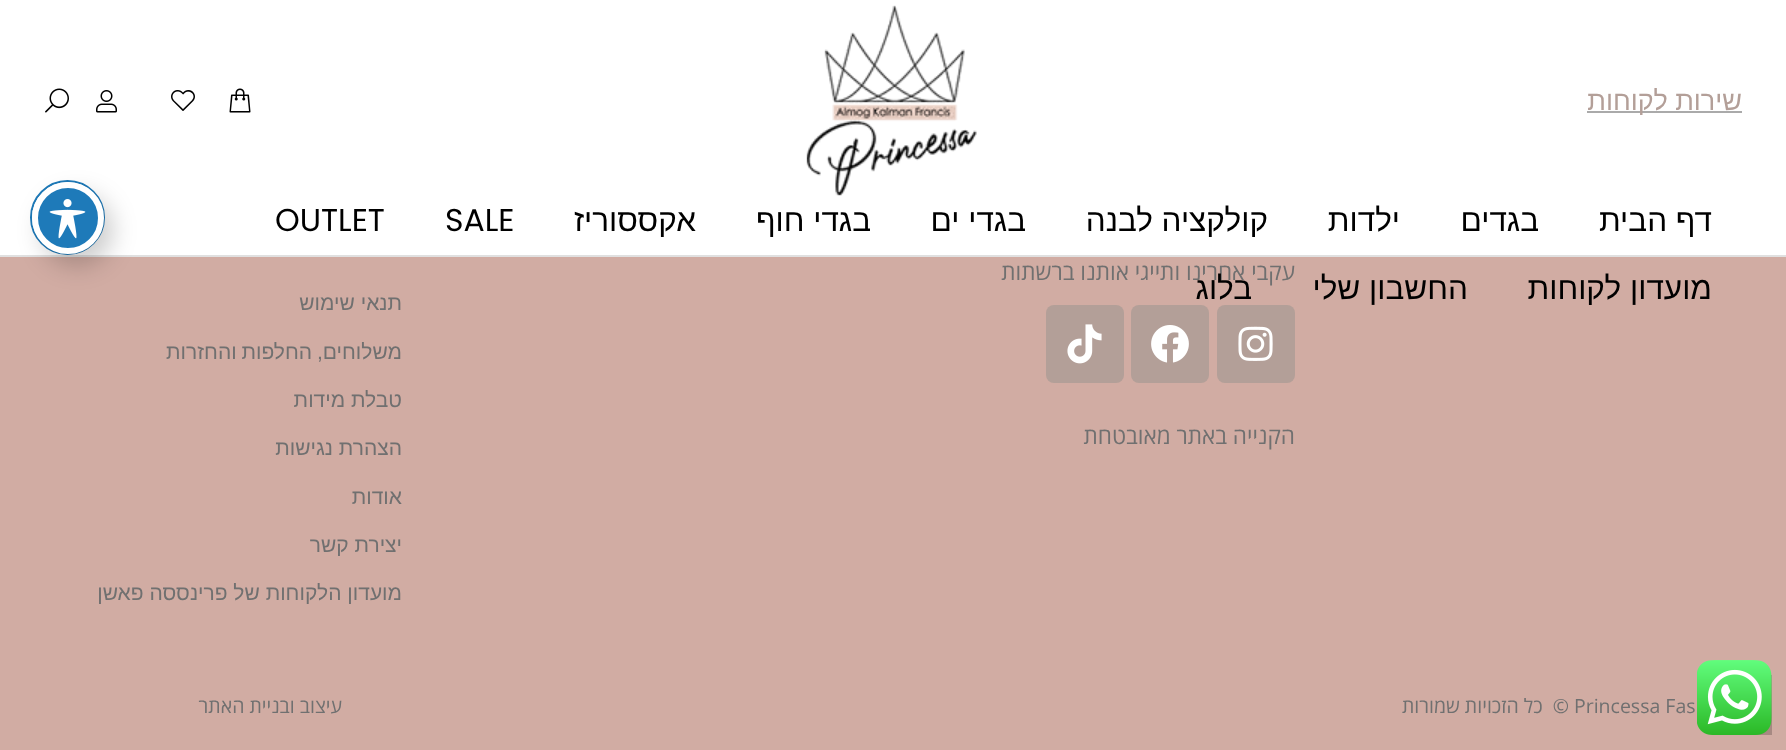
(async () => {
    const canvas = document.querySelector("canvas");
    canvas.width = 1786;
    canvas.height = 750;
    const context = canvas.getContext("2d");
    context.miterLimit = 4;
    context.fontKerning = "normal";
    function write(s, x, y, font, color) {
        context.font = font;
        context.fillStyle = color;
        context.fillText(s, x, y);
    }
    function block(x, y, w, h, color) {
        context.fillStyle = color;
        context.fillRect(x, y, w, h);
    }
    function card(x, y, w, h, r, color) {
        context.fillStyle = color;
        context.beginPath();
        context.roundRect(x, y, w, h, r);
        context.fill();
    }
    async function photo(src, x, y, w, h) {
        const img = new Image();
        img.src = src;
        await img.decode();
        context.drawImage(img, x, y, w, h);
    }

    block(0, 0, 1786, 750, "rgb(209, 172, 163)");
    block(0, 0, 1786, 255, "rgb(255, 255, 255)");
    block(0, 255, 1786, 2, "rgb(224, 224, 224)");
    block(1587, 111, 155, 2, "rgb(170, 170, 170)");
    context.direction = "rtl";
    write("שירות לקוחות", 1742, 110, "27px Liberation Sans", "rgb(179, 159, 152)");
    await photo("media/1.png", 806, 5, 171, 191);
    await photo("media/2.png", 229, 88, 22, 25);
    await photo("media/3.png", 171, 90, 24, 21);
    await photo("media/4.png", 96, 90, 21, 23);
    await photo("media/5.png", 45, 88, 24, 25);
    write("דף הבית", 1712, 231, "31.5px Liberation Sans", "rgb(0, 0, 0)");
    write("בגדים", 1539, 231, "31.5px Liberation Sans", "rgb(0, 0, 0)");
    write("ילדות", 1400, 231, "31.5px Liberation Sans", "rgb(0, 0, 0)");
    write("קולקציה לבנה", 1268, 231, "31.5px Liberation Sans", "rgb(0, 0, 0)");
    write("בגדי ים", 1026, 231, "31.5px Liberation Sans", "rgb(0, 0, 0)");
    write("בגדי חוף", 871, 231, "31.5px Liberation Sans", "rgb(0, 0, 0)");
    write("אקססוריז", 696, 231, "31.5px Liberation Sans", "rgb(0, 0, 0)");
    context.direction = "ltr";
    write("SALE", 445, 231, "31.5px Poppins", "rgb(0, 0, 0)");
    write("OUTLET", 275, 231, "31.5px Poppins", "rgb(0, 0, 0)");
    context.direction = "rtl";
    write("מועדון לקוחות", 1712, 299, "31.5px Liberation Sans", "rgb(0, 0, 0)");
    write("החשבון שלי", 1468, 299, "31.5px Liberation Sans", "rgb(0, 0, 0)");
    write("עקבי אחרינו ותייגי אותנו ברשתות", 1295, 280, "22.5px Open Sans", "rgb(112, 112, 112)");
    write("בלוג", 1252, 299, "31.5px Liberation Sans", "rgb(0, 0, 0)");
    block(1712, 675, 60, 60, "rgba(0, 0, 0, 0.2)");
    card(1217, 305, 78, 78, 8, "rgb(179, 159, 152)");
    await photo("media/6.png", 1238, 326, 35, 35);
    card(1131, 305, 78, 78, 8, "rgb(179, 159, 152)");
    await photo("media/7.png", 1151, 325, 38, 38);
    card(1046, 305, 78, 78, 8, "rgb(179, 159, 152)");
    await photo("media/8.png", 1067, 324, 35, 40);
    write("הקנייה באתר מאובטחת", 1295, 444, "22.5px Open Sans", "rgb(112, 112, 112)");
    write("תנאי שימוש", 402, 310, "21px Liberation Sans", "rgb(112, 112, 112)");
    context.wordSpacing = "-1px";
    write("משלוחים, החלפות והחזרות", 402, 359, "21px Liberation Sans", "rgb(112, 112, 112)");
    context.wordSpacing = "0px";
    write("טבלת מידות", 402, 407, "21px Liberation Sans", "rgb(112, 112, 112)");
    write("הצהרת נגישות", 402, 455, "21px Liberation Sans", "rgb(112, 112, 112)");
    write("אודות", 402, 504, "21px Liberation Sans", "rgb(112, 112, 112)");
    write("יצירת קשר", 402, 552, "21px Liberation Sans", "rgb(112, 112, 112)");
    write("מועדון הלקוחות של פרינססה פאשן", 402, 600, "21px Liberation Sans", "rgb(112, 112, 112)");
    context.direction = "ltr";
    write("Princessa Fas", 1574, 713, "19.5px Open Sans", "rgb(112, 112, 112)");
    context.direction = "rtl";
    write("©  כל הזכויות שמורות", 1569, 713, "19.5px Open Sans", "rgb(112, 112, 112)");
    write("עיצוב ובניית האתר", 342, 713, "19.5px Open Sans", "rgb(112, 112, 112)");
    context.beginPath();
    context.arc(67.5, 217.5, 36.5, 0, Math.PI * 2);
    context.strokeStyle = "rgb(30, 122, 185)";
    context.lineWidth = 2;
    context.stroke();
    context.fillStyle = "rgba(0, 0, 0, 0.2)";
    context.filter = "blur(12px)";
    context.beginPath();
    context.roundRect(41, 194, 72, 72, 36);
    context.fill();
    context.filter = "none";
    context.fillStyle = "rgb(30, 122, 185)";
    context.beginPath();
    context.arc(68, 218, 33, 0, Math.PI * 2);
    context.fill();
    context.strokeStyle = "rgb(255, 255, 255)";
    context.lineWidth = 6;
    context.stroke();
    await photo("media/9.png", 49, 199, 37, 40);
    await photo("media/10.png", 1697, 660, 75, 75);
})();
